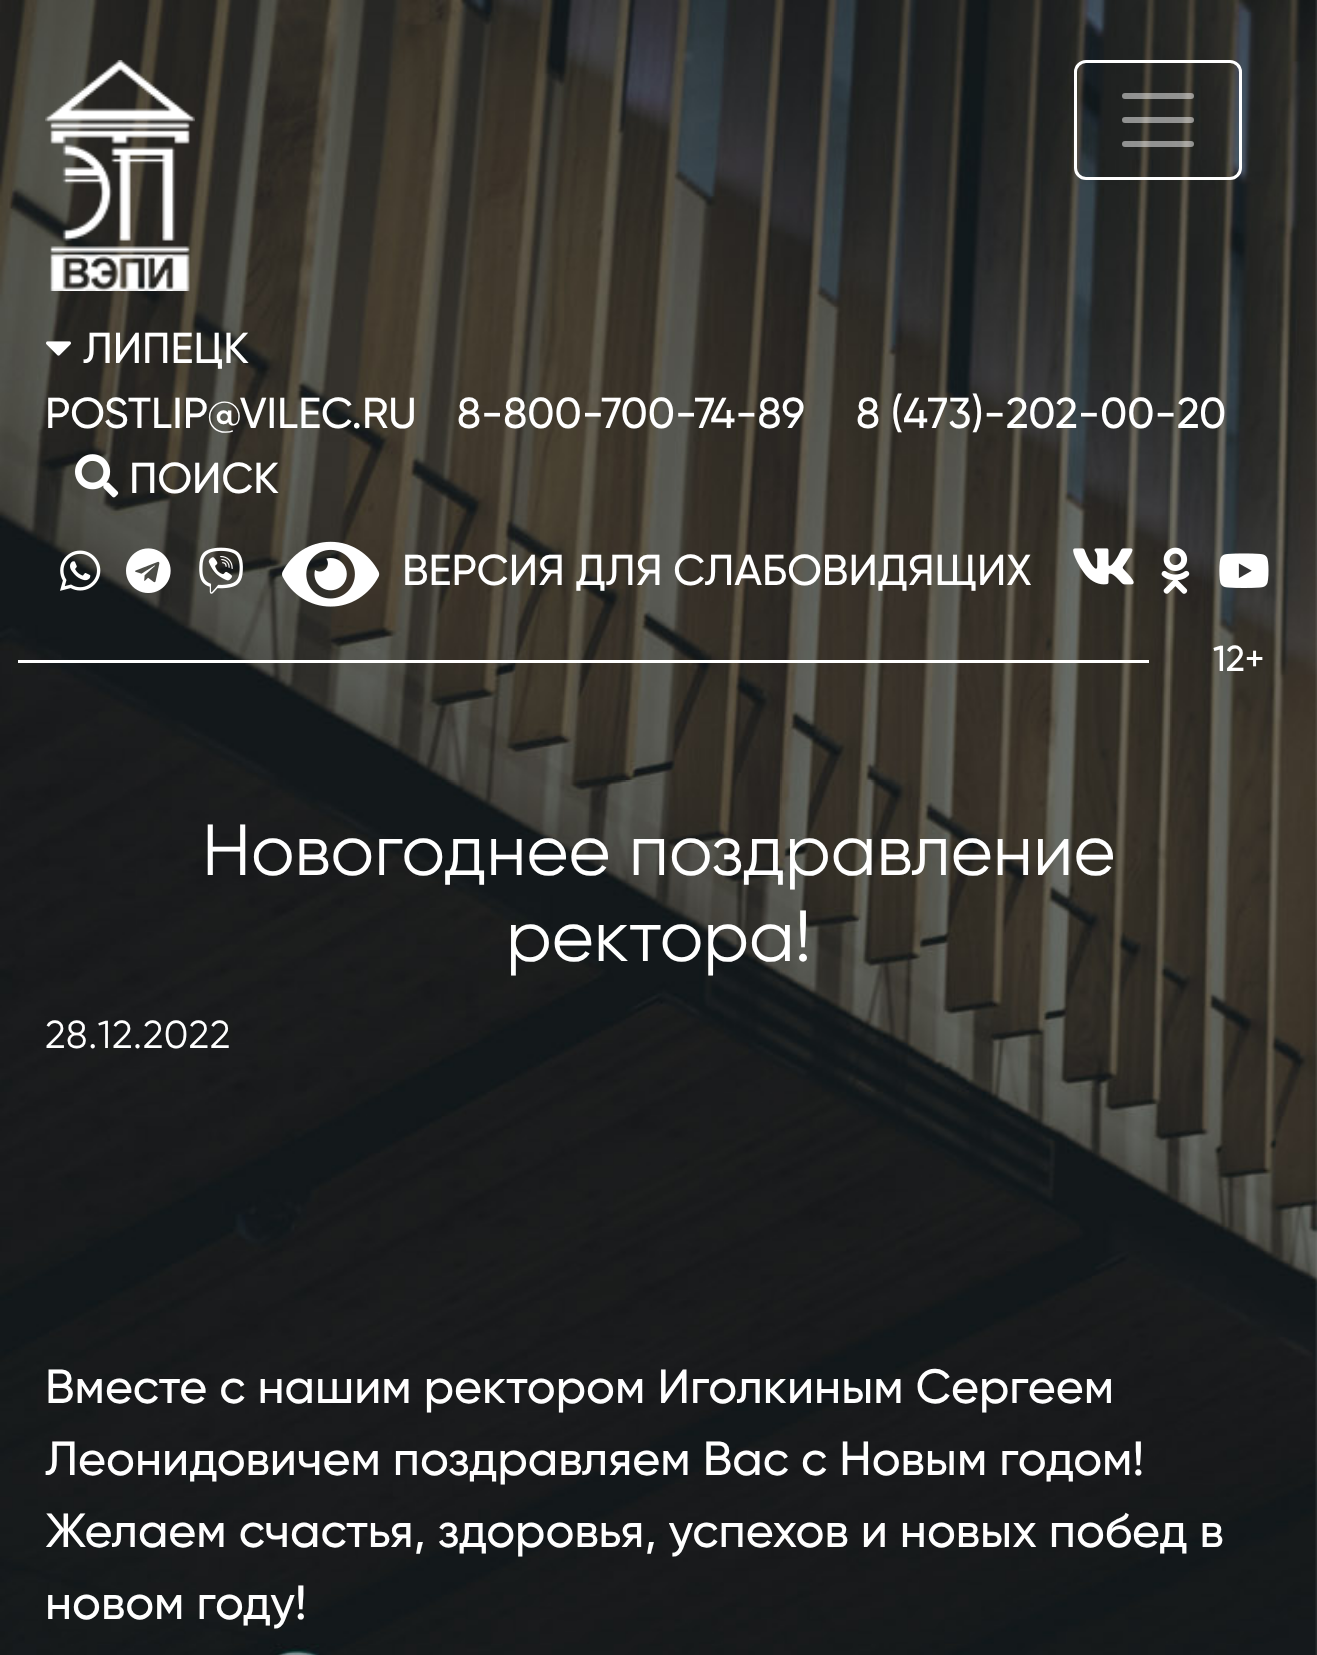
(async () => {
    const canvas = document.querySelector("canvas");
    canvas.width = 1317;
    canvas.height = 1655;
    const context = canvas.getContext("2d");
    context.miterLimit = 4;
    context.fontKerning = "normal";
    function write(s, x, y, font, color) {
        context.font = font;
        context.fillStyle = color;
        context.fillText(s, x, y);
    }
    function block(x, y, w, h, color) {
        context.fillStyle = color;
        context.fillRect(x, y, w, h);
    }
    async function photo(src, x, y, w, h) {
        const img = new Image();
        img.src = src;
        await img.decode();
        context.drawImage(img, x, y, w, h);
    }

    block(0, 0, 1317, 1655, "rgb(255, 255, 255)");
    await photo("media/1.png", 0, 0, 1317, 1655);
    await photo("media/2.png", 45, 60, 150, 231);
    context.beginPath();
    context.roundRect(1075.5, 61.5, 165, 117, 10.5);
    context.strokeStyle = "rgb(255, 255, 255)";
    context.lineWidth = 3;
    context.stroke();
    context.beginPath();
    context.moveTo(1125, 96);
    context.lineTo(1191, 96);
    context.moveTo(1125, 120);
    context.lineTo(1191, 120);
    context.moveTo(1125, 144);
    context.lineTo(1191, 144);
    context.strokeStyle = "rgba(255, 255, 255, 0.5)";
    context.lineWidth = 6;
    context.lineCap = "round";
    context.stroke();
    await photo("media/3.png", 46, 341, 25, 15);
    write("ЛИПЕЦК", 83, 363, "500 43.25px Gilroy", "rgb(255, 255, 255)");
    write("POSTLIP@VILEC.RU", 45, 428, "500 43.25px Gilroy", "rgb(255, 255, 255)");
    write("8-800-700-74-89", 457, 428, "500 43.25px Gilroy", "rgb(255, 255, 255)");
    write("8 (473)-202-00-20", 856, 428, "500 43.25px Gilroy", "rgb(255, 255, 255)");
    await photo("media/4.png", 75, 454, 44, 44);
    write("ПОИСК", 129, 493, "500 43.25px Gilroy", "rgb(255, 255, 255)");
    await photo("media/5.png", 60, 550, 41, 41);
    await photo("media/6.png", 126, 548, 45, 45);
    await photo("media/7.png", 199, 547, 44, 47);
    await photo("media/8.png", 282, 541, 98, 66);
    write("ВЕРСИЯ ДЛЯ СЛАБОВИДЯЩИХ", 402, 585, "500 43.25px Gilroy", "rgb(255, 255, 255)");
    await photo("media/9.png", 1073, 548, 61, 37);
    await photo("media/10.png", 1161, 547, 29, 47);
    await photo("media/11.png", 1219, 553, 50, 35);
    block(18, 660, 1131, 3, "rgb(255, 255, 255)");
    write("12+", 1213, 671, "500 36px Gilroy", "rgb(255, 255, 255)");
    write("Новогоднее поздравление", 202, 875, "72px Gilroy", "rgb(255, 255, 255)");
    write("ректора!", 506, 961, "72px Gilroy", "rgb(255, 255, 255)");
    context.letterSpacing = "0.75px";
    write("28.12.2022", 45, 1048, "39px Gilroy", "rgb(255, 255, 255)");
    context.letterSpacing = "0px";
    write("Вместе с нашим ректором Иголкиным Сергеем", 45, 1403, "500 48px Gilroy", "rgb(255, 255, 255)");
    write("Леонидовичем поздравляем Вас с Новым годом!", 45, 1475, "500 48px Gilroy", "rgb(255, 255, 255)");
    write("Желаем счастья, здоровья, успехов и новых побед в", 45, 1547, "500 48px Gilroy", "rgb(255, 255, 255)");
    write("новом году!", 45, 1619, "500 48px Gilroy", "rgb(255, 255, 255)");
})();
